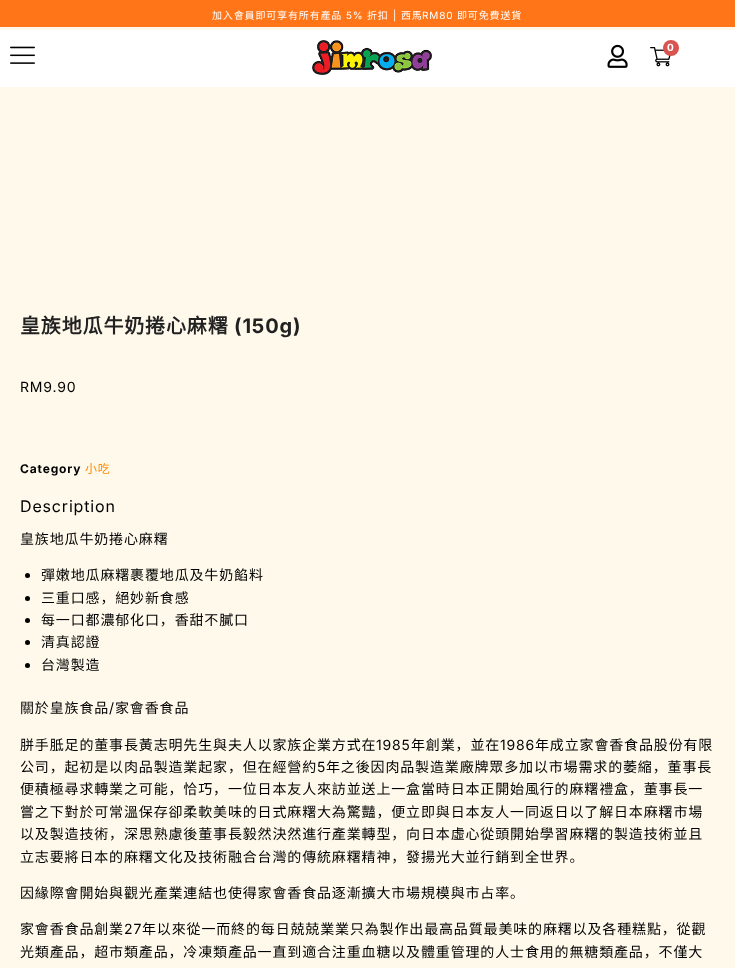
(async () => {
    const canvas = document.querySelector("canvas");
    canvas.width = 735;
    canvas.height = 968;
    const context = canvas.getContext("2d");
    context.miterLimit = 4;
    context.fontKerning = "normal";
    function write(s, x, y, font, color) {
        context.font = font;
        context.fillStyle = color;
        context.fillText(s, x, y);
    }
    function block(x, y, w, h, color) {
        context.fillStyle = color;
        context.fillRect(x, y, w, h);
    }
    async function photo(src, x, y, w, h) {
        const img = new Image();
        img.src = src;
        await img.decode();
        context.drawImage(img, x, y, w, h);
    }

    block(0, 0, 735, 968, "rgb(255, 249, 235)");
    block(0, 0, 735, 27, "rgb(255, 117, 23)");
    context.letterSpacing = "0.85px";
    write("加入會員即可享有所有產品", 212, 19, "10px Noto Sans CJK SC", "rgb(255, 255, 255)");
    write("5%", 346, 19, "10px Inter", "rgb(255, 255, 255)");
    write("折扣", 367, 19, "10px Noto Sans CJK SC", "rgb(255, 255, 255)");
    write("|", 393, 19, "10px Inter", "rgb(255, 255, 255)");
    write("西馬", 401, 19, "10px Noto Sans CJK SC", "rgb(255, 255, 255)");
    write("RM80", 422, 19, "10px Inter", "rgb(255, 255, 255)");
    write("即可免費送貨", 457, 19, "10px Noto Sans CJK SC", "rgb(255, 255, 255)");
    block(0, 30, 735, 57, "rgb(255, 255, 255)");
    await photo("media/1.png", 10, 46, 25, 18);
    await photo("media/2.png", 312, 40, 120, 35);
    await photo("media/3.png", 607, 44, 21, 24);
    await photo("media/4.png", 650, 47, 21, 20);
    context.fillStyle = "rgb(217, 83, 79)";
    context.beginPath();
    context.arc(671, 48, 8, 0, Math.PI * 2);
    context.fill();
    write("0", 667, 51, "bold 10px Inter", "rgb(255, 255, 255)");
    write("皇族地瓜牛奶捲心麻糬", 20, 333, "bold 20px Noto Sans CJK SC", "rgb(33, 33, 33)");
    write("(150g)", 234, 333, "bold 20px Inter", "rgb(33, 33, 33)");
    write("RM9.90", 20, 392, "14px Inter", "rgb(0, 0, 0)");
    write("Category", 20, 473, "bold 12px Inter", "rgb(0, 0, 0)");
    write("小吃", 85, 473, "12px Noto Sans CJK SC", "rgb(255, 139, 0)");
    write("Description", 20, 512, "16px Inter", "rgb(0, 0, 0)");
    write("皇族地瓜牛奶捲心麻糬", 20, 544, "14px Noto Sans CJK SC", "rgb(0, 0, 0)");
    context.beginPath();
    context.arc(27.5, 575.5, 2.5, 0, Math.PI * 2);
    context.fill();
    write("彈嫩地瓜麻糬裹覆地瓜及牛奶餡料", 41, 580, "14px Noto Sans CJK SC", "rgb(0, 0, 0)");
    context.beginPath();
    context.arc(27.5, 598.5, 2.5, 0, Math.PI * 2);
    context.fill();
    write("三重口感，絕妙新食感", 41, 603, "14px Noto Sans CJK SC", "rgb(0, 0, 0)");
    context.beginPath();
    context.arc(27.5, 620.5, 2.5, 0, Math.PI * 2);
    context.fill();
    write("每一口都濃郁化口，香甜不膩口", 41, 625, "14px Noto Sans CJK SC", "rgb(0, 0, 0)");
    context.beginPath();
    context.arc(27.5, 642.5, 2.5, 0, Math.PI * 2);
    context.fill();
    write("清真認證", 41, 647, "14px Noto Sans CJK SC", "rgb(0, 0, 0)");
    context.beginPath();
    context.arc(27.5, 665.5, 2.5, 0, Math.PI * 2);
    context.fill();
    write("台灣製造", 41, 670, "14px Noto Sans CJK SC", "rgb(0, 0, 0)");
    write("關於皇族食品", 20, 713, "14px Noto Sans CJK SC", "rgb(0, 0, 0)");
    write("/", 109, 713, "14px Inter", "rgb(0, 0, 0)");
    write("家會香食品", 115, 713, "14px Noto Sans CJK SC", "rgb(0, 0, 0)");
    write("胼手胝足的董事長黃志明先生與夫人以家族企業方式在", 20, 750, "14px Noto Sans CJK SC", "rgb(0, 0, 0)");
    write("1985", 376, 750, "14px Inter", "rgb(0, 0, 0)");
    write("年創業，並在", 411, 750, "14px Noto Sans CJK SC", "rgb(0, 0, 0)");
    write("1986", 500, 750, "14px Inter", "rgb(0, 0, 0)");
    write("年成立家會香食品股份有限", 535, 750, "14px Noto Sans CJK SC", "rgb(0, 0, 0)");
    write("公司，起初是以肉品製造業起家，但在經營約", 20, 772, "14px Noto Sans CJK SC", "rgb(0, 0, 0)");
    write("5", 317, 772, "14px Inter", "rgb(0, 0, 0)");
    write("年之後因肉品製造業廠牌眾多加以市場需求的萎縮，董事長", 326, 772, "14px Noto Sans CJK SC", "rgb(0, 0, 0)");
    write("便積極尋求轉業之可能，恰巧，一位日本友人來訪並送上一盒當時日本正開始風行的麻糬禮盒，董事長一", 20, 794, "14px Noto Sans CJK SC", "rgb(0, 0, 0)");
    write("嘗之下對於可常溫保存卻柔軟美味的日式麻糬大為驚豔，便立即與日本友人一同返日以了解日本麻糬市場", 20, 817, "14px Noto Sans CJK SC", "rgb(0, 0, 0)");
    write("以及製造技術，深思熟慮後董事長毅然決然進行產業轉型，向日本虛心從頭開始學習麻糬的製造技術並且", 20, 839, "14px Noto Sans CJK SC", "rgb(0, 0, 0)");
    write("立志要將日本的麻糬文化及技術融合台灣的傳統麻糬精神，發揚光大並行銷到全世界。", 20, 862, "14px Noto Sans CJK SC", "rgb(0, 0, 0)");
    write("因緣際會開始與觀光產業連結也使得家會香食品逐漸擴大市場規模與市占率。", 20, 898, "14px Noto Sans CJK SC", "rgb(0, 0, 0)");
    write("家會香食品創業", 20, 934, "14px Noto Sans CJK SC", "rgb(0, 0, 0)");
    write("27", 124, 934, "14px Inter", "rgb(0, 0, 0)");
    write("年以來從一而終的每日兢兢業業只為製作出最高品質最美味的麻糬以及各種糕點，從觀", 142, 934, "14px Noto Sans CJK SC", "rgb(0, 0, 0)");
    write("光類產品，超市類產品，冷凍類產品一直到適合注重血糖以及體重管理的人士食用的無糖類產品，不僅大", 20, 957, "14px Noto Sans CJK SC", "rgb(0, 0, 0)");
})();
